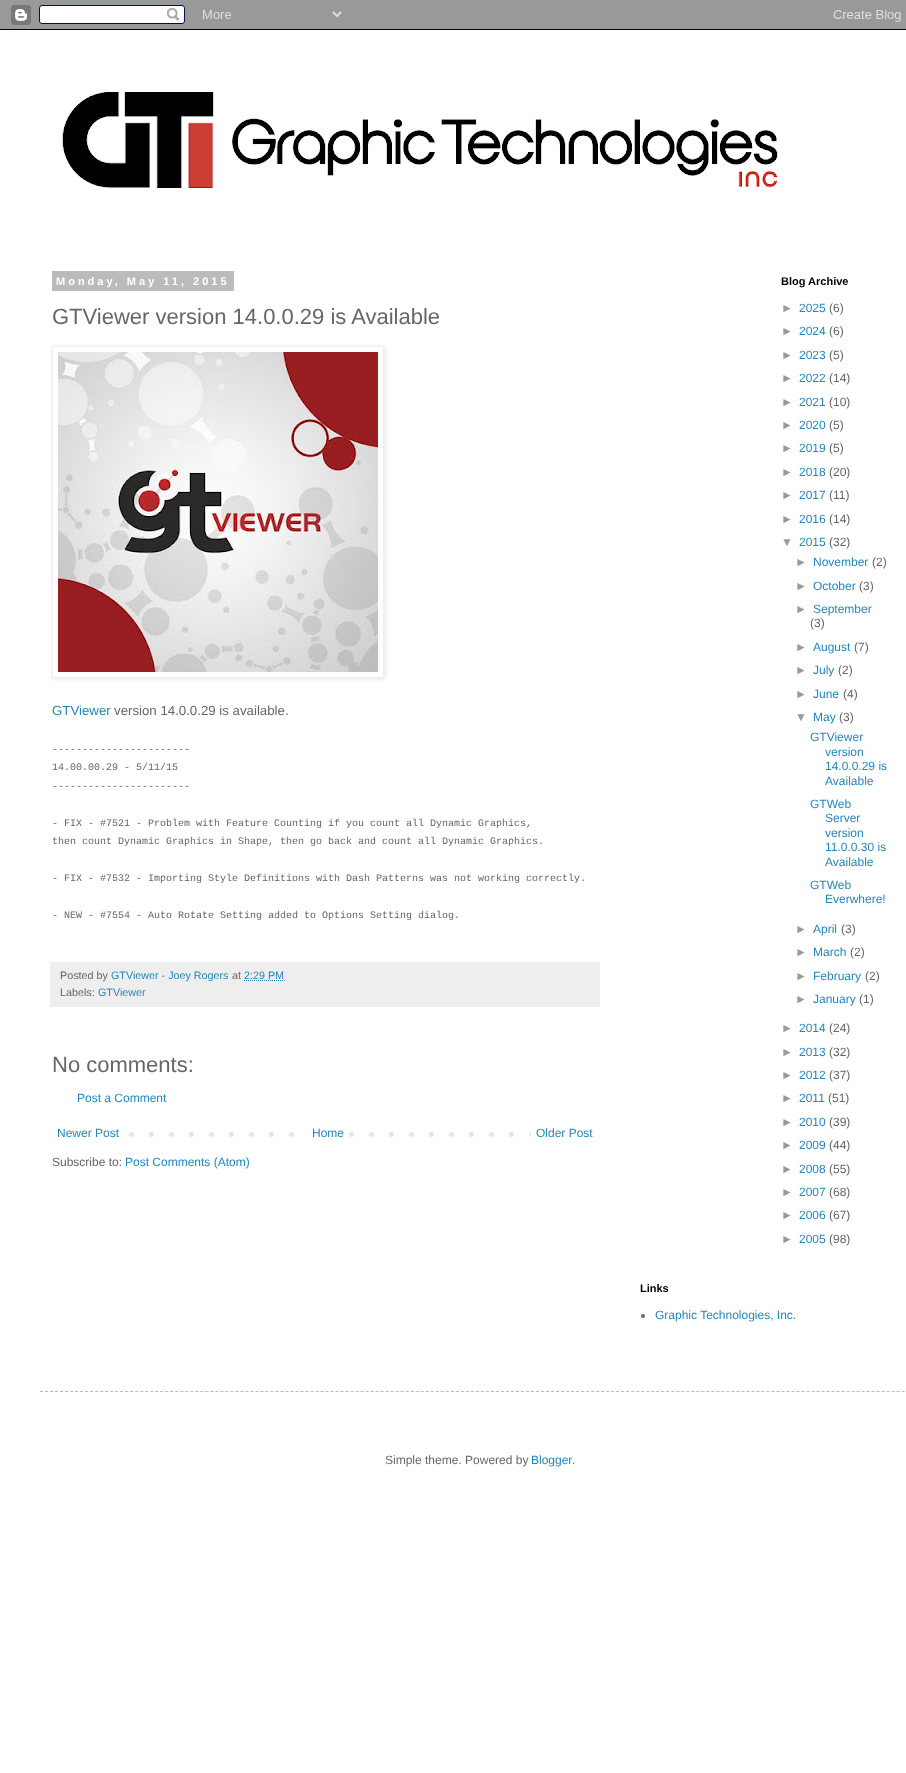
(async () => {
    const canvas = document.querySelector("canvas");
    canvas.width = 906;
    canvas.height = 1773;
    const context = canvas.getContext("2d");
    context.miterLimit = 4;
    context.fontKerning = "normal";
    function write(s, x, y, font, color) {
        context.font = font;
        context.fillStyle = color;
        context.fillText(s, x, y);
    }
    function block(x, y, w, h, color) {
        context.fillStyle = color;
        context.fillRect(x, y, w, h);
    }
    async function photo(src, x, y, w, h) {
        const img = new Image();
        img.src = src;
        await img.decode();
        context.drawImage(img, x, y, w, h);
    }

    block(0, 0, 906, 1773, "rgb(255, 255, 255)");
    await photo("media/1.png", 0, 0, 906, 30);
    await photo("media/2.png", 62, 92, 716, 96);
    block(52, 271, 182, 20, "rgb(187, 187, 187)");
    context.letterSpacing = "3px";
    write("Monday, May 11, 2015", 56, 285, "bold 11px Liberation Sans", "rgb(255, 255, 255)");
    context.letterSpacing = "0px";
    write("GTViewer version 14.0.0.29 is Available", 52, 324, "22px Liberation Sans", "rgb(102, 102, 102)");
    context.save();
    context.beginPath();
    context.moveTo(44, 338);
    context.lineTo(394, 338);
    context.lineTo(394, 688);
    context.lineTo(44, 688);
    context.closePath();
    context.moveTo(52, 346);
    context.lineTo(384, 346);
    context.lineTo(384, 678);
    context.lineTo(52, 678);
    context.closePath();
    context.clip("evenodd");
    context.fillStyle = "rgba(0, 0, 0, 0.1)";
    context.filter = "blur(2.5px)";
    context.beginPath();
    context.rect(53, 347, 332, 332);
    context.fill();
    context.filter = "none";
    context.restore();
    context.strokeStyle = "rgb(238, 238, 238)";
    context.strokeRect(52.5, 346.5, 331, 331);
    await photo("media/3.png", 58, 352, 320, 320);
    write("GTViewer", 52, 715, "13.25px Liberation Sans", "rgb(34, 136, 187)");
    write("version 14.0.0.29 is available.", 114, 715, "13.25px Liberation Sans", "rgb(102, 102, 102)");
    write("-----------------------", 52, 752, "10px Liberation Mono", "rgb(102, 102, 102)");
    write("14.00.00.29 - 5/11/15", 52, 770, "10px Liberation Mono", "rgb(102, 102, 102)");
    write("-----------------------", 52, 789, "10px Liberation Mono", "rgb(102, 102, 102)");
    write("- FIX - #7521 - Problem with Feature Counting if you count all Dynamic Graphics,", 52, 826, "10px Liberation Mono", "rgb(102, 102, 102)");
    write("then count Dynamic Graphics in Shape, then go back and count all Dynamic Graphics.", 52, 844, "10px Liberation Mono", "rgb(102, 102, 102)");
    write("- FIX - #7532 - Importing Style Definitions with Dash Patterns was not working correctly.", 52, 881, "10px Liberation Mono", "rgb(102, 102, 102)");
    write("- NEW - #7554 - Auto Rotate Setting added to Options Setting dialog.", 52, 918, "10px Liberation Mono", "rgb(102, 102, 102)");
    block(50, 962, 550, 45, "rgb(238, 238, 238)");
    write("Posted by", 60, 979, "10.75px Liberation Sans", "rgb(102, 102, 102)");
    write("GTViewer - Joey Rogers", 111, 979, "10.75px Liberation Sans", "rgb(34, 136, 187)");
    write("at", 232, 979, "10.75px Liberation Sans", "rgb(102, 102, 102)");
    write("2:29 PM", 244, 979, "10.75px Liberation Sans", "rgb(34, 136, 187)");
    context.beginPath();
    context.moveTo(244, 980.5);
    context.lineTo(284.5, 980.5);
    context.strokeStyle = "rgb(34, 136, 187)";
    context.setLineDash([1, 1]);
    context.stroke();
    write("Labels:", 60, 996, "10.75px Liberation Sans", "rgb(102, 102, 102)");
    write("GTViewer", 98, 996, "10.75px Liberation Sans", "rgb(34, 136, 187)");
    write("No comments:", 52, 1072, "22px Liberation Sans", "rgb(102, 102, 102)");
    write("Post a Comment", 77, 1102, "12px Liberation Sans", "rgb(34, 136, 187)");
    await photo("media/4.png", 129, 1132, 402, 5);
    write("Newer Post", 57, 1137, "12px Liberation Sans", "rgb(34, 136, 187)");
    block(309, 1132, 26, 5, "rgb(255, 255, 255)");
    write("Home", 312, 1137, "12px Liberation Sans", "rgb(34, 136, 187)");
    write("Older Post", 536, 1137, "12px Liberation Sans", "rgb(34, 136, 187)");
    write("Subscribe to:", 52, 1166, "12px Liberation Sans", "rgb(102, 102, 102)");
    write("Post Comments (Atom)", 125, 1166, "12px Liberation Sans", "rgb(34, 136, 187)");
    write("Blog Archive", 781, 285, "bold 11px Liberation Sans", "rgb(0, 0, 0)");
    write("►", 781, 312, "12px Liberation Sans", "rgb(153, 153, 153)");
    write("2025", 799, 312, "12px Liberation Sans", "rgb(34, 136, 187)");
    write("(6)", 829, 312, "12px Liberation Sans", "rgb(102, 102, 102)");
    write("►", 781, 335, "12px Liberation Sans", "rgb(153, 153, 153)");
    write("2024", 799, 335, "12px Liberation Sans", "rgb(34, 136, 187)");
    write("(6)", 829, 335, "12px Liberation Sans", "rgb(102, 102, 102)");
    write("►", 781, 359, "12px Liberation Sans", "rgb(153, 153, 153)");
    write("2023", 799, 359, "12px Liberation Sans", "rgb(34, 136, 187)");
    write("(5)", 829, 359, "12px Liberation Sans", "rgb(102, 102, 102)");
    write("►", 781, 382, "12px Liberation Sans", "rgb(153, 153, 153)");
    write("2022", 799, 382, "12px Liberation Sans", "rgb(34, 136, 187)");
    write("(14)", 829, 382, "12px Liberation Sans", "rgb(102, 102, 102)");
    write("►", 781, 406, "12px Liberation Sans", "rgb(153, 153, 153)");
    write("2021", 799, 406, "12px Liberation Sans", "rgb(34, 136, 187)");
    write("(10)", 829, 406, "12px Liberation Sans", "rgb(102, 102, 102)");
    write("►", 781, 429, "12px Liberation Sans", "rgb(153, 153, 153)");
    write("2020", 799, 429, "12px Liberation Sans", "rgb(34, 136, 187)");
    write("(5)", 829, 429, "12px Liberation Sans", "rgb(102, 102, 102)");
    write("►", 781, 452, "12px Liberation Sans", "rgb(153, 153, 153)");
    write("2019", 799, 452, "12px Liberation Sans", "rgb(34, 136, 187)");
    write("(5)", 829, 452, "12px Liberation Sans", "rgb(102, 102, 102)");
    write("►", 781, 476, "12px Liberation Sans", "rgb(153, 153, 153)");
    write("2018", 799, 476, "12px Liberation Sans", "rgb(34, 136, 187)");
    write("(20)", 829, 476, "12px Liberation Sans", "rgb(102, 102, 102)");
    write("►", 781, 499, "12px Liberation Sans", "rgb(153, 153, 153)");
    write("2017", 799, 499, "12px Liberation Sans", "rgb(34, 136, 187)");
    write("(11)", 829, 499, "12px Liberation Sans", "rgb(102, 102, 102)");
    write("►", 781, 523, "12px Liberation Sans", "rgb(153, 153, 153)");
    write("2016", 799, 523, "12px Liberation Sans", "rgb(34, 136, 187)");
    write("(14)", 829, 523, "12px Liberation Sans", "rgb(102, 102, 102)");
    write("▼", 781, 546, "12px Liberation Sans", "rgb(153, 153, 153)");
    write("2015", 799, 546, "12px Liberation Sans", "rgb(34, 136, 187)");
    write("(32)", 829, 546, "12px Liberation Sans", "rgb(102, 102, 102)");
    write("►", 795, 566, "12px Liberation Sans", "rgb(153, 153, 153)");
    write("November", 813, 566, "12px Liberation Sans", "rgb(34, 136, 187)");
    write("(2)", 872, 566, "12px Liberation Sans", "rgb(102, 102, 102)");
    write("►", 795, 590, "12px Liberation Sans", "rgb(153, 153, 153)");
    write("October", 813, 590, "12px Liberation Sans", "rgb(34, 136, 187)");
    write("(3)", 859, 590, "12px Liberation Sans", "rgb(102, 102, 102)");
    write("►", 795, 613, "12px Liberation Sans", "rgb(153, 153, 153)");
    write("September", 813, 613, "12px Liberation Sans", "rgb(34, 136, 187)");
    write("(3)", 810, 627, "12px Liberation Sans", "rgb(102, 102, 102)");
    write("►", 795, 651, "12px Liberation Sans", "rgb(153, 153, 153)");
    write("August", 813, 651, "12px Liberation Sans", "rgb(34, 136, 187)");
    write("(7)", 854, 651, "12px Liberation Sans", "rgb(102, 102, 102)");
    write("►", 795, 674, "12px Liberation Sans", "rgb(153, 153, 153)");
    write("July", 813, 674, "12px Liberation Sans", "rgb(34, 136, 187)");
    write("(2)", 838, 674, "12px Liberation Sans", "rgb(102, 102, 102)");
    write("►", 795, 698, "12px Liberation Sans", "rgb(153, 153, 153)");
    write("June", 813, 698, "12px Liberation Sans", "rgb(34, 136, 187)");
    write("(4)", 843, 698, "12px Liberation Sans", "rgb(102, 102, 102)");
    write("▼", 795, 721, "12px Liberation Sans", "rgb(153, 153, 153)");
    write("May", 813, 721, "12px Liberation Sans", "rgb(34, 136, 187)");
    write("(3)", 839, 721, "12px Liberation Sans", "rgb(102, 102, 102)");
    write("GTViewer", 810, 741, "12px Liberation Sans", "rgb(34, 136, 187)");
    write("version", 825, 756, "12px Liberation Sans", "rgb(34, 136, 187)");
    write("14.0.0.29 is", 825, 770, "12px Liberation Sans", "rgb(34, 136, 187)");
    write("Available", 825, 785, "12px Liberation Sans", "rgb(34, 136, 187)");
    write("GTWeb", 810, 808, "12px Liberation Sans", "rgb(34, 136, 187)");
    write("Server", 825, 822, "12px Liberation Sans", "rgb(34, 136, 187)");
    write("version", 825, 837, "12px Liberation Sans", "rgb(34, 136, 187)");
    write("11.0.0.30 is", 825, 851, "12px Liberation Sans", "rgb(34, 136, 187)");
    write("Available", 825, 866, "12px Liberation Sans", "rgb(34, 136, 187)");
    write("GTWeb", 810, 889, "12px Liberation Sans", "rgb(34, 136, 187)");
    write("Everwhere!", 825, 903, "12px Liberation Sans", "rgb(34, 136, 187)");
    write("►", 795, 933, "12px Liberation Sans", "rgb(153, 153, 153)");
    write("April", 813, 933, "12px Liberation Sans", "rgb(34, 136, 187)");
    write("(3)", 841, 933, "12px Liberation Sans", "rgb(102, 102, 102)");
    write("►", 795, 956, "12px Liberation Sans", "rgb(153, 153, 153)");
    write("March", 813, 956, "12px Liberation Sans", "rgb(34, 136, 187)");
    write("(2)", 850, 956, "12px Liberation Sans", "rgb(102, 102, 102)");
    write("►", 795, 980, "12px Liberation Sans", "rgb(153, 153, 153)");
    write("February", 813, 980, "12px Liberation Sans", "rgb(34, 136, 187)");
    write("(2)", 865, 980, "12px Liberation Sans", "rgb(102, 102, 102)");
    write("►", 795, 1003, "12px Liberation Sans", "rgb(153, 153, 153)");
    write("January", 813, 1003, "12px Liberation Sans", "rgb(34, 136, 187)");
    write("(1)", 859, 1003, "12px Liberation Sans", "rgb(102, 102, 102)");
    write("►", 781, 1032, "12px Liberation Sans", "rgb(153, 153, 153)");
    write("2014", 799, 1032, "12px Liberation Sans", "rgb(34, 136, 187)");
    write("(24)", 829, 1032, "12px Liberation Sans", "rgb(102, 102, 102)");
    write("►", 781, 1056, "12px Liberation Sans", "rgb(153, 153, 153)");
    write("2013", 799, 1056, "12px Liberation Sans", "rgb(34, 136, 187)");
    write("(32)", 829, 1056, "12px Liberation Sans", "rgb(102, 102, 102)");
    write("►", 781, 1079, "12px Liberation Sans", "rgb(153, 153, 153)");
    write("2012", 799, 1079, "12px Liberation Sans", "rgb(34, 136, 187)");
    write("(37)", 829, 1079, "12px Liberation Sans", "rgb(102, 102, 102)");
    write("►", 781, 1102, "12px Liberation Sans", "rgb(153, 153, 153)");
    write("2011", 799, 1102, "12px Liberation Sans", "rgb(34, 136, 187)");
    write("(51)", 828, 1102, "12px Liberation Sans", "rgb(102, 102, 102)");
    write("►", 781, 1126, "12px Liberation Sans", "rgb(153, 153, 153)");
    write("2010", 799, 1126, "12px Liberation Sans", "rgb(34, 136, 187)");
    write("(39)", 829, 1126, "12px Liberation Sans", "rgb(102, 102, 102)");
    write("►", 781, 1149, "12px Liberation Sans", "rgb(153, 153, 153)");
    write("2009", 799, 1149, "12px Liberation Sans", "rgb(34, 136, 187)");
    write("(44)", 829, 1149, "12px Liberation Sans", "rgb(102, 102, 102)");
    write("►", 781, 1173, "12px Liberation Sans", "rgb(153, 153, 153)");
    write("2008", 799, 1173, "12px Liberation Sans", "rgb(34, 136, 187)");
    write("(55)", 829, 1173, "12px Liberation Sans", "rgb(102, 102, 102)");
    write("►", 781, 1196, "12px Liberation Sans", "rgb(153, 153, 153)");
    write("2007", 799, 1196, "12px Liberation Sans", "rgb(34, 136, 187)");
    write("(68)", 829, 1196, "12px Liberation Sans", "rgb(102, 102, 102)");
    write("►", 781, 1219, "12px Liberation Sans", "rgb(153, 153, 153)");
    write("2006", 799, 1219, "12px Liberation Sans", "rgb(34, 136, 187)");
    write("(67)", 829, 1219, "12px Liberation Sans", "rgb(102, 102, 102)");
    write("►", 781, 1243, "12px Liberation Sans", "rgb(153, 153, 153)");
    write("2005", 799, 1243, "12px Liberation Sans", "rgb(34, 136, 187)");
    write("(98)", 829, 1243, "12px Liberation Sans", "rgb(102, 102, 102)");
    write("Links", 640, 1292, "bold 11px Liberation Sans", "rgb(0, 0, 0)");
    context.fillStyle = "rgb(102, 102, 102)";
    context.beginPath();
    context.arc(643, 1316, 2, 0, Math.PI * 2);
    context.fill();
    write("Graphic Technologies, Inc.", 655, 1319, "12px Liberation Sans", "rgb(34, 136, 187)");
    context.beginPath();
    context.moveTo(40, 1391.5);
    context.lineTo(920, 1391.5);
    context.strokeStyle = "rgb(187, 187, 187)";
    context.setLineDash([3, 2.01]);
    context.stroke();
    write("Simple theme. Powered by", 385, 1464, "12px Liberation Sans", "rgb(102, 102, 102)");
    write("Blogger", 531, 1464, "12px Liberation Sans", "rgb(34, 136, 187)");
    write(".", 572, 1464, "12px Liberation Sans", "rgb(102, 102, 102)");
})();
